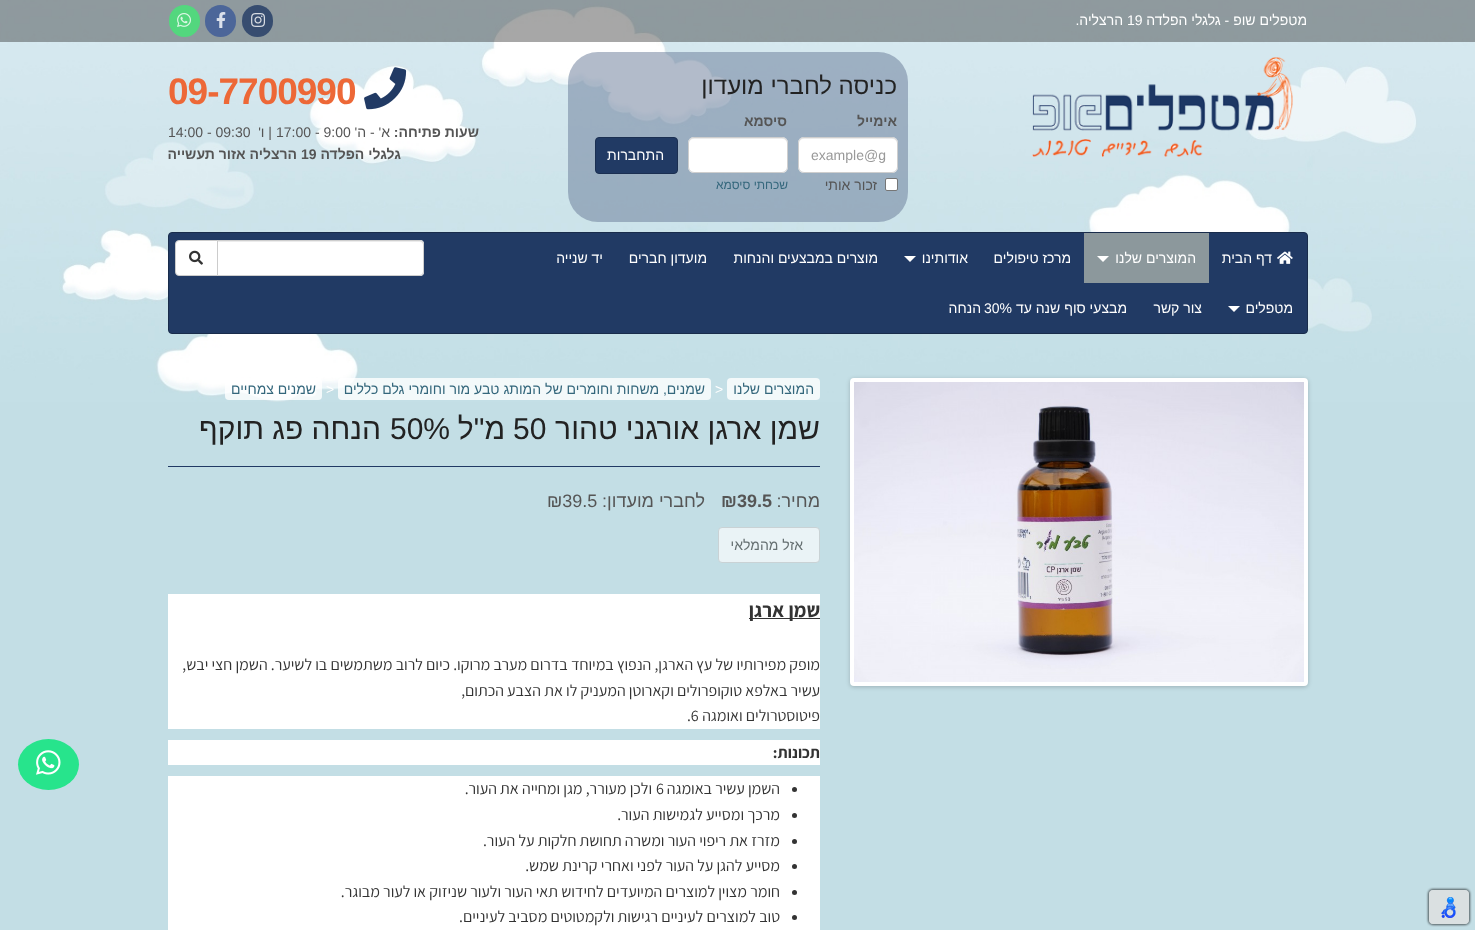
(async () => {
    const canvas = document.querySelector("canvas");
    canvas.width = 1475;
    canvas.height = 930;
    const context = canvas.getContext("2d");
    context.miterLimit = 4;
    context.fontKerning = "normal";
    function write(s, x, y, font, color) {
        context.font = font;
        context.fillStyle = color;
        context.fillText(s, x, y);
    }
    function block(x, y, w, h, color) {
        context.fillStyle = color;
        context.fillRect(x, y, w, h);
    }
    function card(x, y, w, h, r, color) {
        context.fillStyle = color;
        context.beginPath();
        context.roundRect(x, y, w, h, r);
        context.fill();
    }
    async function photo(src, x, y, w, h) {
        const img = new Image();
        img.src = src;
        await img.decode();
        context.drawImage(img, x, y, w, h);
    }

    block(0, 0, 1475, 930, "rgb(195, 222, 229)");
    await photo("media/1.png", 0, 0, 1475, 402);
    context.save();
    context.beginPath();
    context.moveTo(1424, 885);
    context.lineTo(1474, 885);
    context.lineTo(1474, 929);
    context.lineTo(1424, 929);
    context.closePath();
    context.moveTo(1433, 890);
    context.lineTo(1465, 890);
    context.bezierCurveTo(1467, 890, 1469, 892, 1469, 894);
    context.lineTo(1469, 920);
    context.bezierCurveTo(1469, 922, 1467, 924, 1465, 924);
    context.lineTo(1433, 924);
    context.bezierCurveTo(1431, 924, 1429, 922, 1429, 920);
    context.lineTo(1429, 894);
    context.bezierCurveTo(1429, 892, 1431, 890, 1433, 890);
    context.closePath();
    context.clip("evenodd");
    context.fillStyle = "rgba(0, 0, 0, 0.6)";
    context.filter = "blur(1px)";
    context.beginPath();
    context.roundRect(1428, 889, 42, 36, 5);
    context.fill();
    context.filter = "none";
    context.restore();
    card(1429, 890, 40, 34, 4, "rgba(224, 224, 224, 0.8)");
    await photo("media/2.png", 1441, 897, 15, 21);
    block(0, 0, 1475, 42, "rgba(34, 34, 34, 0.4)");
    context.direction = "rtl";
    write("מטפלים שופ - גלגלי הפלדה", 1307, 25, "14px Liberation Sans", "rgb(255, 255, 255)");
    context.direction = "ltr";
    write("19", 1127, 25, "14px Liberation Sans", "rgb(255, 255, 255)");
    context.direction = "rtl";
    write("הרצליה.", 1123, 25, "14px Liberation Sans", "rgb(255, 255, 255)");
    card(242, 5, 31, 32, 15.5, "rgb(55, 77, 112)");
    await photo("media/3.png", 251, 13, 15, 14);
    card(205, 5, 31, 32, 15.5, "rgb(76, 102, 153)");
    await photo("media/4.png", 216, 12, 10, 16);
    card(169, 5, 31, 32, 15.5, "rgb(83, 215, 126)");
    await photo("media/5.png", 177, 13, 14, 14);
    await photo("media/6.png", 1032, 57, 261, 100);
    card(568, 52, 340, 170, 30, "rgba(102, 120, 149, 0.5)");
    write("כניסה לחברי מועדון", 897, 94, "24px Liberation Sans", "rgb(34, 34, 34)");
    write("אימייל", 897, 126, "bold 14px Liberation Sans", "rgb(85, 85, 85)");
    card(798, 137, 100, 36, 6, "rgb(255, 255, 255)");
    context.fillStyle = "rgb(236, 236, 236)";
    context.beginPath();
    context.moveTo(804, 139);
    context.lineTo(892, 139);
    context.bezierCurveTo(895, 139, 897, 141, 897, 144);
    context.bezierCurveTo(897, 134, 883, 138, 877, 138);
    context.lineTo(819, 138);
    context.bezierCurveTo(813, 138, 799, 134, 799, 144);
    context.bezierCurveTo(799, 141, 801, 139, 804, 139);
    context.closePath();
    context.fill();
    context.beginPath();
    context.roundRect(798.5, 137.5, 99, 35, 5.5);
    context.strokeStyle = "rgb(206, 206, 206)";
    context.stroke();
    context.direction = "ltr";
    write("example@g", 811, 160, "14px Liberation Sans", "rgb(153, 153, 153)");
    context.fillStyle = "rgb(255, 255, 255)";
    context.beginPath();
    context.roundRect(885.5, 178.5, 12, 12, 1.5);
    context.fill();
    context.strokeStyle = "rgb(118, 118, 118)";
    context.stroke();
    context.direction = "rtl";
    write("זכור אותי", 877, 190, "14px Liberation Sans", "rgb(85, 85, 85)");
    write("סיסמא", 787, 126, "bold 14px Liberation Sans", "rgb(85, 85, 85)");
    card(688, 137, 100, 36, 6, "rgb(255, 255, 255)");
    context.fillStyle = "rgb(236, 236, 236)";
    context.beginPath();
    context.moveTo(694, 139);
    context.lineTo(782, 139);
    context.bezierCurveTo(785, 139, 787, 141, 787, 144);
    context.bezierCurveTo(787, 134, 773, 138, 767, 138);
    context.lineTo(709, 138);
    context.bezierCurveTo(703, 138, 689, 134, 689, 144);
    context.bezierCurveTo(689, 141, 691, 139, 694, 139);
    context.closePath();
    context.fill();
    context.beginPath();
    context.roundRect(688.5, 137.5, 99, 35, 5.5);
    context.strokeStyle = "rgb(206, 206, 206)";
    context.stroke();
    write("שכחתי סיסמא", 788, 189, "12px Liberation Sans", "rgb(52, 103, 124)");
    context.fillStyle = "rgb(33, 58, 100)";
    context.beginPath();
    context.roundRect(595.5, 137.5, 82, 36, 3.5);
    context.fill();
    context.strokeStyle = "rgb(27, 47, 81)";
    context.stroke();
    write("התחברות", 664, 160, "14px Liberation Sans", "rgb(255, 255, 255)");
    await photo("media/7.png", 364, 67, 43, 43);
    context.letterSpacing = "-1px";
    context.direction = "ltr";
    write("09-7700990", 168, 104, "bold 37px Liberation Sans", "rgb(237, 104, 55)");
    context.letterSpacing = "0px";
    context.direction = "rtl";
    write("שעות פתיחה:", 479, 137, "bold 14px Liberation Sans", "rgb(85, 85, 85)");
    write("א' - ה'", 390, 137, "14px Liberation Sans", "rgb(85, 85, 85)");
    context.direction = "ltr";
    write("17:00 - 9:00", 276, 137, "14px Liberation Sans", "rgb(85, 85, 85)");
    context.direction = "rtl";
    write("| ו'", 272, 137, "14px Liberation Sans", "rgb(85, 85, 85)");
    context.direction = "ltr";
    write("14:00 - 09:30", 168, 137, "14px Liberation Sans", "rgb(85, 85, 85)");
    context.direction = "rtl";
    write("גלגלי הפלדה", 401, 159, "bold 14px Liberation Sans", "rgb(85, 85, 85)");
    context.direction = "ltr";
    write("19", 301, 159, "bold 14px Liberation Sans", "rgb(85, 85, 85)");
    context.direction = "rtl";
    write("הרצליה אזור תעשייה", 297, 159, "bold 14px Liberation Sans", "rgb(85, 85, 85)");
    context.fillStyle = "rgb(33, 58, 100)";
    context.beginPath();
    context.roundRect(168.5, 232.5, 1139, 101, 3.5);
    context.fill();
    context.strokeStyle = "rgb(25, 44, 75)";
    context.stroke();
    await photo("media/8.png", 1277, 251, 16, 13);
    write("דף הבית", 1272, 263, "14px Liberation Sans", "rgb(255, 255, 255)");
    block(1084, 233, 125, 50, "rgb(140, 152, 156)");
    write("המוצרים שלנו", 1196, 263, "14px Liberation Sans", "rgb(255, 255, 255)");
    context.beginPath();
    context.moveTo(1097, 256);
    context.lineTo(1109, 256);
    context.lineTo(1103, 262);
    context.closePath();
    context.fill();
    write("מרכז טיפולים", 1071, 263, "14px Liberation Sans", "rgb(255, 255, 255)");
    write("אודותינו", 968, 263, "14px Liberation Sans", "rgb(255, 255, 255)");
    context.beginPath();
    context.moveTo(904, 256);
    context.lineTo(916, 256);
    context.lineTo(910, 262);
    context.closePath();
    context.fill();
    write("מוצרים במבצעים והנחות", 878, 263, "14px Liberation Sans", "rgb(255, 255, 255)");
    write("מועדון חברים", 707, 263, "14px Liberation Sans", "rgb(255, 255, 255)");
    write("יד שנייה", 603, 263, "14px Liberation Sans", "rgb(255, 255, 255)");
    write("מטפלים", 1293, 313, "14px Liberation Sans", "rgb(255, 255, 255)");
    context.beginPath();
    context.moveTo(1228, 306);
    context.lineTo(1240, 306);
    context.lineTo(1234, 312);
    context.closePath();
    context.fill();
    write("צור קשר", 1202, 313, "14px Liberation Sans", "rgb(255, 255, 255)");
    write("מבצעי סוף שנה עד", 1127, 313, "14px Liberation Sans", "rgb(255, 255, 255)");
    context.direction = "ltr";
    write("30%", 984, 313, "14px Liberation Sans", "rgb(255, 255, 255)");
    context.direction = "rtl";
    write("הנחה", 981, 313, "14px Liberation Sans", "rgb(255, 255, 255)");
    context.beginPath();
    context.roundRect(217, 240, 207, 36, [0, 4, 4, 0]);
    context.fill();
    context.fillStyle = "rgb(236, 236, 236)";
    context.beginPath();
    context.moveTo(218, 242);
    context.lineTo(420, 242);
    context.bezierCurveTo(422, 242, 423, 243, 423, 245);
    context.bezierCurveTo(423, 243, 423, 242, 421, 241);
    context.lineTo(218, 241);
    context.closePath();
    context.fill();
    context.beginPath();
    context.roundRect(217.5, 240.5, 206, 35, [0, 3.5, 3.5, 0]);
    context.strokeStyle = "rgb(206, 206, 206)";
    context.stroke();
    context.fillStyle = "rgb(255, 255, 255)";
    context.beginPath();
    context.roundRect(175.5, 240.5, 42, 35, [3.5, 0, 0, 3.5]);
    context.fill();
    context.strokeStyle = "rgb(204, 204, 204)";
    context.stroke();
    await photo("media/9.png", 189, 250, 14, 15);
    context.fillStyle = "rgba(0, 0, 0, 0.2)";
    context.filter = "blur(2px)";
    context.beginPath();
    context.roundRect(850, 379, 458, 308, 4);
    context.fill();
    context.filter = "none";
    context.beginPath();
    context.roundRect(852, 380, 454, 304, 2);
    context.strokeStyle = "rgb(255, 255, 255)";
    context.lineWidth = 4;
    context.stroke();
    await photo("media/10.png", 854, 382, 450, 300);
    card(727, 378, 93, 22, 4, "rgb(243, 249, 250)");
    write("המוצרים שלנו", 814, 394, "14px Liberation Sans", "rgb(52, 103, 124)");
    context.direction = "ltr";
    write(">", 715, 394, "14px Liberation Sans", "rgb(255, 255, 255)");
    card(338, 378, 373, 22, 4, "rgba(255, 255, 255, 0.8)");
    context.direction = "rtl";
    write("שמנים, משחות וחומרים של המותג טבע מור וחומרי גלם כללים", 705, 394, "14px Liberation Sans", "rgb(52, 103, 124)");
    context.direction = "ltr";
    write(">", 326, 394, "14px Liberation Sans", "rgb(255, 255, 255)");
    card(225, 378, 97, 22, 4, "rgba(255, 255, 255, 0.8)");
    context.direction = "rtl";
    write("שמנים צמחיים", 316, 394, "14px Liberation Sans", "rgb(52, 103, 124)");
    block(168, 466, 652, 1, "rgb(33, 58, 100)");
    write("שמן ארגן אורגני טהור", 820, 439, "30px Liberation Sans", "rgb(34, 34, 34)");
    context.direction = "ltr";
    write("50", 513, 439, "30px Liberation Sans", "rgb(34, 34, 34)");
    context.direction = "rtl";
    write("מ\"ל", 505, 439, "30px Liberation Sans", "rgb(34, 34, 34)");
    context.direction = "ltr";
    write("50%", 390, 439, "30px Liberation Sans", "rgb(34, 34, 34)");
    context.direction = "rtl";
    write("הנחה פג תוקף", 381, 439, "30px Liberation Sans", "rgb(34, 34, 34)");
    write("מחיר:", 820, 507, "18px Liberation Sans", "rgb(85, 85, 85)");
    context.direction = "ltr";
    write("₪39.5", 721, 507, "bold 18px Liberation Sans", "rgb(85, 85, 85)");
    context.direction = "rtl";
    write("לחברי מועדון:", 705, 507, "18px Liberation Sans", "rgb(85, 85, 85)");
    context.direction = "ltr";
    write("₪39.5", 547, 507, "18px Liberation Sans", "rgb(85, 85, 85)");
    context.fillStyle = "rgb(234, 243, 246)";
    context.beginPath();
    context.roundRect(718.5, 527.5, 101, 35, 3.5);
    context.fill();
    context.strokeStyle = "rgb(201, 210, 213)";
    context.lineWidth = 1;
    context.stroke();
    context.direction = "rtl";
    write("אזל מהמלאי", 803, 550, "14px Liberation Sans", "rgb(101, 111, 113)");
    block(168, 594, 652, 135, "rgb(255, 255, 255)");
    block(749, 618, 71, 1, "rgb(51, 51, 51)");
    write("שמן ארגן", 820, 617, "bold 20px Assistant", "rgb(51, 51, 51)");
    write("מופק מפירותיו של עץ הארגן, הנפוץ במיוחד בדרום מערב מרוקו. כיום לרוב משתמשים בו לשיער. השמן חצי יבש,", 820, 670, "16px Assistant", "rgb(51, 51, 51)");
    write("עשיר באלפא טוקופרולים וקארוטן המעניק לו את הצבע הכתום,", 820, 696, "16px Assistant", "rgb(51, 51, 51)");
    write("פיטוסטרולים ואומגה", 820, 721, "16px Assistant", "rgb(51, 51, 51)");
    context.direction = "ltr";
    write(".6", 687, 721, "16px Assistant", "rgb(51, 51, 51)");
    block(168, 740, 652, 25, "rgb(255, 255, 255)");
    context.direction = "rtl";
    write("תכונות:", 820, 758, "bold 16px Assistant", "rgb(51, 51, 51)");
    block(168, 776, 652, 154, "rgb(255, 255, 255)");
    context.fillStyle = "rgb(51, 51, 51)";
    context.beginPath();
    context.arc(794.5, 789.5, 2.5, 0, Math.PI * 2);
    context.fill();
    write("השמן עשיר באומגה", 780, 794, "16px Assistant", "rgb(51, 51, 51)");
    context.direction = "ltr";
    write("6", 656, 794, "16px Assistant", "rgb(51, 51, 51)");
    context.direction = "rtl";
    write("ולכן מעורר, מגן ומחייה את העור.", 652, 794, "16px Assistant", "rgb(51, 51, 51)");
    context.beginPath();
    context.arc(794.5, 815.5, 2.5, 0, Math.PI * 2);
    context.fill();
    write("מרכך ומסייע לגמישות העור.", 780, 820, "16px Assistant", "rgb(51, 51, 51)");
    context.beginPath();
    context.arc(794.5, 841.5, 2.5, 0, Math.PI * 2);
    context.fill();
    write("מזרז את ריפוי העור ומשרה תחושת חלקות על העור.", 780, 846, "16px Assistant", "rgb(51, 51, 51)");
    context.beginPath();
    context.arc(794.5, 866.5, 2.5, 0, Math.PI * 2);
    context.fill();
    write("מסייע להגן על העור לפני ואחרי קרינת שמש.", 780, 871, "16px Assistant", "rgb(51, 51, 51)");
    context.beginPath();
    context.arc(794.5, 892.5, 2.5, 0, Math.PI * 2);
    context.fill();
    write("חומר מצוין למוצרים המיועדים לחידוש תאי העור ולעור שניזוק או לעור מבוגר.", 780, 897, "16px Assistant", "rgb(51, 51, 51)");
    context.beginPath();
    context.arc(794.5, 917.5, 2.5, 0, Math.PI * 2);
    context.fill();
    write("טוב למוצרים לעיניים רגישות ולקמטוטים מסביב לעיניים.", 780, 922, "16px Assistant", "rgb(51, 51, 51)");
    context.fillStyle = "rgb(39, 228, 140)";
    context.beginPath();
    context.ellipse(48.5, 764.5, 30.5, 25.5, 0, 0, Math.PI * 2);
    context.fill();
    await photo("media/11.png", 36, 750, 25, 25);
})();
